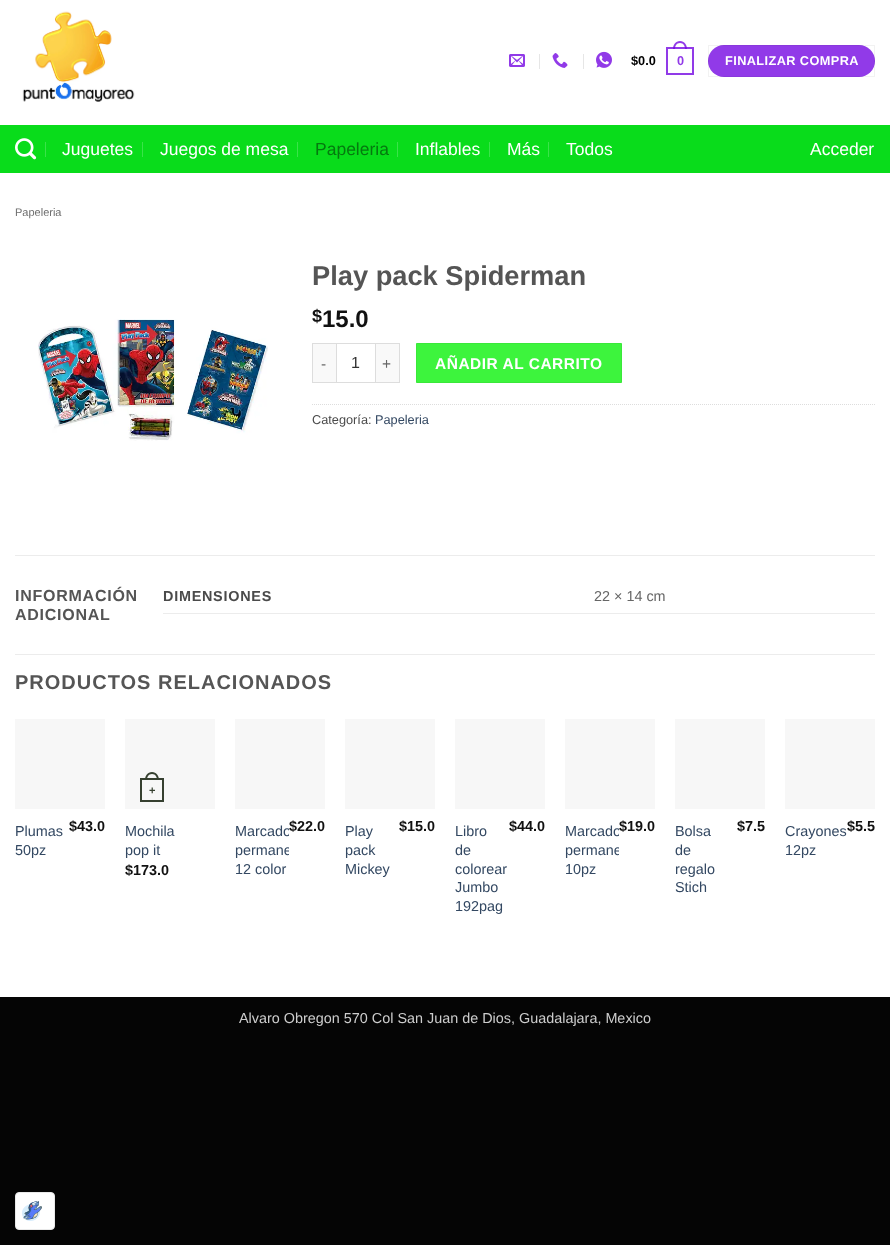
(async () => {
    const canvas = document.querySelector("canvas");
    canvas.width = 890;
    canvas.height = 1245;
    const context = canvas.getContext("2d");
    context.miterLimit = 4;
    context.fontKerning = "normal";
    function write(s, x, y, font, color) {
        context.font = font;
        context.fillStyle = color;
        context.fillText(s, x, y);
    }
    function block(x, y, w, h, color) {
        context.fillStyle = color;
        context.fillRect(x, y, w, h);
    }
    function card(x, y, w, h, r, color) {
        context.fillStyle = color;
        context.beginPath();
        context.roundRect(x, y, w, h, r);
        context.fill();
    }
    async function photo(src, x, y, w, h) {
        const img = new Image();
        img.src = src;
        await img.decode();
        context.drawImage(img, x, y, w, h);
    }

    block(0, 0, 890, 1245, "rgb(5, 5, 5)");
    block(0, 0, 890, 997, "rgb(255, 255, 255)");
    await photo("media/1.png", 22, 11, 113, 91);
    await photo("media/2.png", 509, 54, 16, 13);
    block(539, 54, 1, 15, "rgb(230, 230, 230)");
    await photo("media/3.png", 552, 53, 16, 15);
    block(583, 54, 1, 15, "rgb(230, 230, 230)");
    await photo("media/4.png", 596, 51, 16, 17);
    write("$0.0", 631, 65, "bold 12.75px Liberation Sans", "rgb(0, 0, 0)");
    context.strokeStyle = "rgb(145, 58, 232)";
    context.lineWidth = 2;
    context.strokeRect(667, 48, 26, 26);
    context.fillStyle = "rgba(118, 9, 226, 0.8)";
    context.beginPath();
    context.moveTo(680, 41);
    context.bezierCurveTo(684.5, 41, 687, 45, 687, 49);
    context.lineTo(673, 49);
    context.bezierCurveTo(673, 45, 675.5, 41, 680, 41);
    context.closePath();
    context.moveTo(680, 43);
    context.bezierCurveTo(683.5, 43, 685, 46, 685, 49);
    context.lineTo(675, 49);
    context.bezierCurveTo(675, 46, 676.5, 43, 680, 43);
    context.closePath();
    context.fill("evenodd");
    write("0", 677, 65, "bold 12.75px Liberation Sans", "rgb(145, 58, 232)");
    card(708, 45, 167, 32, 16, "rgb(145, 58, 232)");
    context.strokeStyle = "rgba(0, 0, 0, 0.05)";
    context.lineWidth = 1;
    context.strokeRect(708.5, 45.5, 166, 31);
    context.letterSpacing = "0.4px";
    write("FINALIZAR COMPRA", 725, 65, "bold 12.75px Liberation Sans", "rgb(255, 255, 255)");
    block(0, 125, 890, 48, "rgb(9, 220, 27)");
    await photo("media/5.png", 15, 138, 22, 22);
    block(45, 142, 1, 15, "rgb(58, 227, 73)");
    context.letterSpacing = "0px";
    write("Juguetes", 62, 155, "17.5px Liberation Sans", "rgb(255, 255, 255)");
    block(142, 142, 1, 15, "rgb(58, 227, 73)");
    write("Juegos de mesa", 160, 155, "17.5px Liberation Sans", "rgb(255, 255, 255)");
    block(297, 142, 1, 15, "rgb(58, 227, 73)");
    write("Papeleria", 315, 155, "17.5px Liberation Sans", "rgb(5, 121, 15)");
    block(397, 142, 1, 15, "rgb(58, 227, 73)");
    write("Inflables", 415, 155, "17.5px Liberation Sans", "rgb(255, 255, 255)");
    block(489, 142, 1, 15, "rgb(58, 227, 73)");
    write("Más", 507, 155, "17.5px Liberation Sans", "rgb(255, 255, 255)");
    block(548, 142, 1, 15, "rgb(58, 227, 73)");
    write("Todos", 566, 155, "17.5px Liberation Sans", "rgb(255, 255, 255)");
    write("Acceder", 810, 155, "17.5px Liberation Sans", "rgb(255, 255, 255)");
    write("Papeleria", 15, 216, "11px Liberation Sans", "rgb(110, 110, 110)");
    await photo("media/6.png", 38, 319, 230, 122);
    write("Play pack Spiderman", 312, 285, "bold 27.25px Liberation Sans", "rgb(85, 85, 85)");
    write("$", 312, 322, "bold 18px Liberation Sans", "rgb(17, 17, 17)");
    write("15.0", 322, 327, "bold 24px Liberation Sans", "rgb(17, 17, 17)");
    block(313, 344, 23, 38, "rgb(249, 249, 249)");
    block(312, 343, 24, 1, "rgb(221, 221, 221)");
    block(312, 382, 24, 1, "rgb(221, 221, 221)");
    block(312, 343, 1, 40, "rgb(221, 221, 221)");
    context.letterSpacing = "0.5px";
    write("-", 321, 369, "15.5px Liberation Sans", "rgb(102, 102, 102)");
    context.strokeStyle = "rgb(221, 221, 221)";
    context.strokeRect(336.5, 343.5, 39, 39);
    context.letterSpacing = "0px";
    write("1", 351, 368, "16px Liberation Sans", "rgb(51, 51, 51)");
    block(376, 344, 23, 38, "rgb(249, 249, 249)");
    block(376, 343, 24, 1, "rgb(221, 221, 221)");
    block(399, 343, 1, 40, "rgb(221, 221, 221)");
    block(376, 382, 24, 1, "rgb(221, 221, 221)");
    context.letterSpacing = "0.5px";
    write("+", 382, 369, "15.5px Liberation Sans", "rgb(102, 102, 102)");
    context.fillStyle = "rgb(61, 244, 61)";
    context.beginPath();
    context.rect(416.5, 343.5, 205, 39);
    context.fill();
    context.strokeStyle = "rgb(58, 232, 58)";
    context.stroke();
    write("AÑADIR AL CARRITO", 435, 369, "bold 15.5px Liberation Sans", "rgb(255, 255, 255)");
    context.beginPath();
    context.moveTo(312, 404.5);
    context.lineTo(875, 404.5);
    context.strokeStyle = "rgb(221, 221, 221)";
    context.setLineDash([1, 1]);
    context.stroke();
    context.letterSpacing = "0px";
    write("Categoría:", 312, 424, "12.75px Liberation Sans", "rgb(74, 74, 74)");
    write("Papeleria", 375, 424, "12.75px Liberation Sans", "rgb(51, 72, 98)");
    block(15, 555, 860, 1, "rgb(236, 236, 236)");
    context.letterSpacing = "0.75px";
    write("INFORMACIÓN", 15, 601, "bold 16px Liberation Sans", "rgb(85, 85, 85)");
    write("ADICIONAL", 15, 620, "bold 16px Liberation Sans", "rgb(85, 85, 85)");
    block(163, 613, 712, 1, "rgb(236, 236, 236)");
    write("DIMENSIONES", 163, 601, "bold 14.4px Liberation Sans", "rgb(74, 74, 74)");
    context.letterSpacing = "0px";
    write("22 × 14 cm", 594, 601, "14.4px Liberation Sans", "rgb(102, 102, 102)");
    block(15, 654, 860, 1, "rgb(236, 236, 236)");
    context.letterSpacing = "1px";
    write("PRODUCTOS RELACIONADOS", 15, 689, "bold 20px Liberation Sans", "rgb(85, 85, 85)");
    block(15, 719, 90, 90, "rgb(247, 247, 247)");
    context.letterSpacing = "0px";
    write("Plumas", 15, 836, "14.4px Liberation Sans", "rgb(51, 72, 98)");
    write("50pz", 15, 855, "14.4px Liberation Sans", "rgb(51, 72, 98)");
    write("$43.0", 69, 831, "bold 14.4px Liberation Sans", "rgb(17, 17, 17)");
    block(125, 719, 90, 90, "rgb(247, 247, 247)");
    context.strokeStyle = "rgb(54, 64, 48)";
    context.lineWidth = 2;
    context.setLineDash([]);
    context.strokeRect(141, 779, 22, 22);
    context.fillStyle = "rgb(54, 64, 48)";
    context.beginPath();
    context.moveTo(152, 772);
    context.bezierCurveTo(156.5, 772, 159, 776, 159, 780);
    context.lineTo(145, 780);
    context.bezierCurveTo(145, 776, 147.5, 772, 152, 772);
    context.closePath();
    context.moveTo(152, 774);
    context.bezierCurveTo(155.5, 774, 157, 777, 157, 780);
    context.lineTo(147, 780);
    context.bezierCurveTo(147, 777, 148.5, 774, 152, 774);
    context.closePath();
    context.fill("evenodd");
    write("+", 149, 794, "bold 11px Liberation Sans", "rgb(54, 64, 48)");
    write("Mochila", 125, 836, "14.4px Liberation Sans", "rgb(51, 72, 98)");
    write("pop it", 125, 855, "14.4px Liberation Sans", "rgb(51, 72, 98)");
    write("$173.0", 125, 875, "bold 14.4px Liberation Sans", "rgb(17, 17, 17)");
    block(235, 719, 90, 90, "rgb(247, 247, 247)");
    context.save();
    context.beginPath();
    context.rect(235, 819, 54, 63);
    context.clip();
    write("Marcado", 235, 836, "14.4px Liberation Sans", "rgb(51, 72, 98)");
    write("permane", 235, 855, "14.4px Liberation Sans", "rgb(51, 72, 98)");
    context.restore();
    write("12 color", 235, 874, "14.4px Liberation Sans", "rgb(51, 72, 98)");
    write("$22.0", 289, 831, "bold 14.4px Liberation Sans", "rgb(17, 17, 17)");
    block(345, 719, 90, 90, "rgb(247, 247, 247)");
    write("Play", 345, 836, "14.4px Liberation Sans", "rgb(51, 72, 98)");
    write("pack", 345, 855, "14.4px Liberation Sans", "rgb(51, 72, 98)");
    write("Mickey", 345, 874, "14.4px Liberation Sans", "rgb(51, 72, 98)");
    write("$15.0", 399, 831, "bold 14.4px Liberation Sans", "rgb(17, 17, 17)");
    block(455, 719, 90, 90, "rgb(247, 247, 247)");
    write("Libro", 455, 836, "14.4px Liberation Sans", "rgb(51, 72, 98)");
    write("de", 455, 855, "14.4px Liberation Sans", "rgb(51, 72, 98)");
    write("colorear", 455, 874, "14.4px Liberation Sans", "rgb(51, 72, 98)");
    write("Jumbo", 455, 892, "14.4px Liberation Sans", "rgb(51, 72, 98)");
    write("192pag", 455, 911, "14.4px Liberation Sans", "rgb(51, 72, 98)");
    write("$44.0", 509, 831, "bold 14.4px Liberation Sans", "rgb(17, 17, 17)");
    block(565, 719, 90, 90, "rgb(247, 247, 247)");
    context.save();
    context.beginPath();
    context.rect(565, 819, 54, 63);
    context.clip();
    write("Marcado", 565, 836, "14.4px Liberation Sans", "rgb(51, 72, 98)");
    write("permane", 565, 855, "14.4px Liberation Sans", "rgb(51, 72, 98)");
    context.restore();
    write("10pz", 565, 874, "14.4px Liberation Sans", "rgb(51, 72, 98)");
    write("$19.0", 619, 831, "bold 14.4px Liberation Sans", "rgb(17, 17, 17)");
    block(675, 719, 90, 90, "rgb(247, 247, 247)");
    write("Bolsa", 675, 836, "14.4px Liberation Sans", "rgb(51, 72, 98)");
    write("de", 675, 855, "14.4px Liberation Sans", "rgb(51, 72, 98)");
    write("regalo", 675, 874, "14.4px Liberation Sans", "rgb(51, 72, 98)");
    write("Stich", 675, 892, "14.4px Liberation Sans", "rgb(51, 72, 98)");
    write("$7.5", 737, 831, "bold 14.4px Liberation Sans", "rgb(17, 17, 17)");
    block(785, 719, 90, 90, "rgb(247, 247, 247)");
    write("Crayones", 785, 836, "14.4px Liberation Sans", "rgb(51, 72, 98)");
    write("12pz", 785, 855, "14.4px Liberation Sans", "rgb(51, 72, 98)");
    write("$5.5", 847, 831, "bold 14.4px Liberation Sans", "rgb(17, 17, 17)");
    write("Alvaro Obregon 570 Col San Juan de Dios, Guadalajara, Mexico", 239, 1023, "14.4px Liberation Sans", "rgb(205, 205, 205)");
    context.fillStyle = "rgb(255, 255, 255)";
    context.beginPath();
    context.roundRect(15.5, 1192.5, 39, 37, 3.5);
    context.fill();
    context.strokeStyle = "rgb(233, 233, 233)";
    context.lineWidth = 1;
    context.stroke();
    await photo("media/7.png", 22, 1201, 20, 20);
})();
